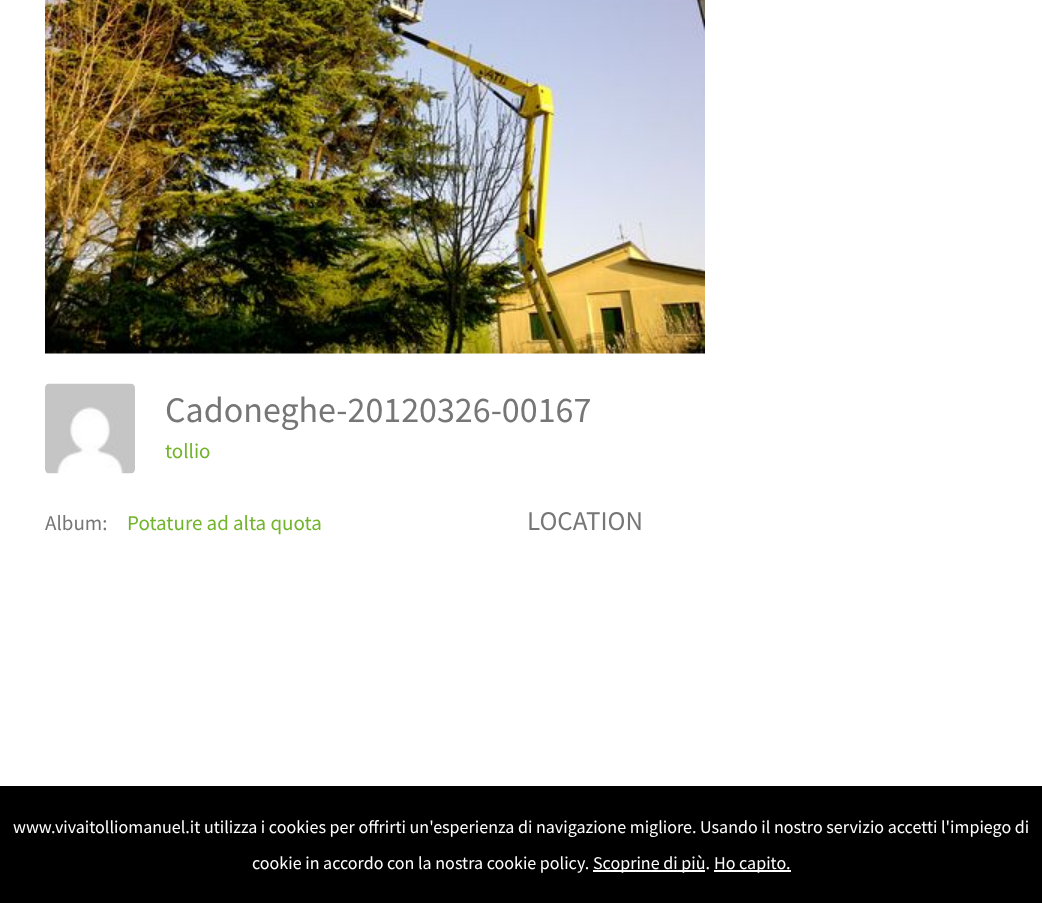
(async () => {
    const canvas = document.querySelector("canvas");
    canvas.width = 1042;
    canvas.height = 903;
    const context = canvas.getContext("2d");
    context.miterLimit = 4;
    context.fontKerning = "normal";
    function write(s, x, y, font, color) {
        context.font = font;
        context.fillStyle = color;
        context.fillText(s, x, y);
    }
    function block(x, y, w, h, color) {
        context.fillStyle = color;
        context.fillRect(x, y, w, h);
    }
    async function photo(src, x, y, w, h) {
        const img = new Image();
        img.src = src;
        await img.decode();
        context.drawImage(img, x, y, w, h);
    }

    block(0, 0, 1042, 903, "rgb(255, 255, 255)");
    await photo("media/1.png", 45, 0, 660, 354);
    await photo("media/2.png", 45, 383, 90, 91);
    write("Cadoneghe-20120326-00167", 165, 422, "36px Source Sans Pro", "rgb(118, 118, 118)");
    write("tollio", 165, 458, "21px Source Sans Pro", "rgb(114, 180, 44)");
    write("Album:", 45, 530, "21px Source Sans Pro", "rgb(118, 118, 118)");
    write("Potature ad alta quota", 127, 530, "21px Source Sans Pro", "rgb(114, 180, 44)");
    write("LOCATION", 527, 530, "27px Source Sans Pro", "rgb(118, 118, 118)");
    block(0, 786, 1042, 117, "rgb(0, 0, 0)");
    write("www.vivaitolliomanuel.it utilizza i cookies per offrirti un'esperienza di navigazione migliore. Usando il nostro servizio accetti l'impiego di", 13, 833, "18px Source Sans Pro", "rgb(255, 255, 255)");
    write("cookie in accordo con la nostra cookie policy.", 252, 869, "18px Source Sans Pro", "rgb(255, 255, 255)");
    block(593, 870, 112, 2, "rgb(255, 255, 255)");
    write("Scoprine di più.", 593, 869, "18px Source Sans Pro", "rgb(255, 255, 255)");
    block(714, 870, 77, 2, "rgb(255, 255, 255)");
    write("Ho capito.", 714, 869, "18px Source Sans Pro", "rgb(255, 255, 255)");
})();
